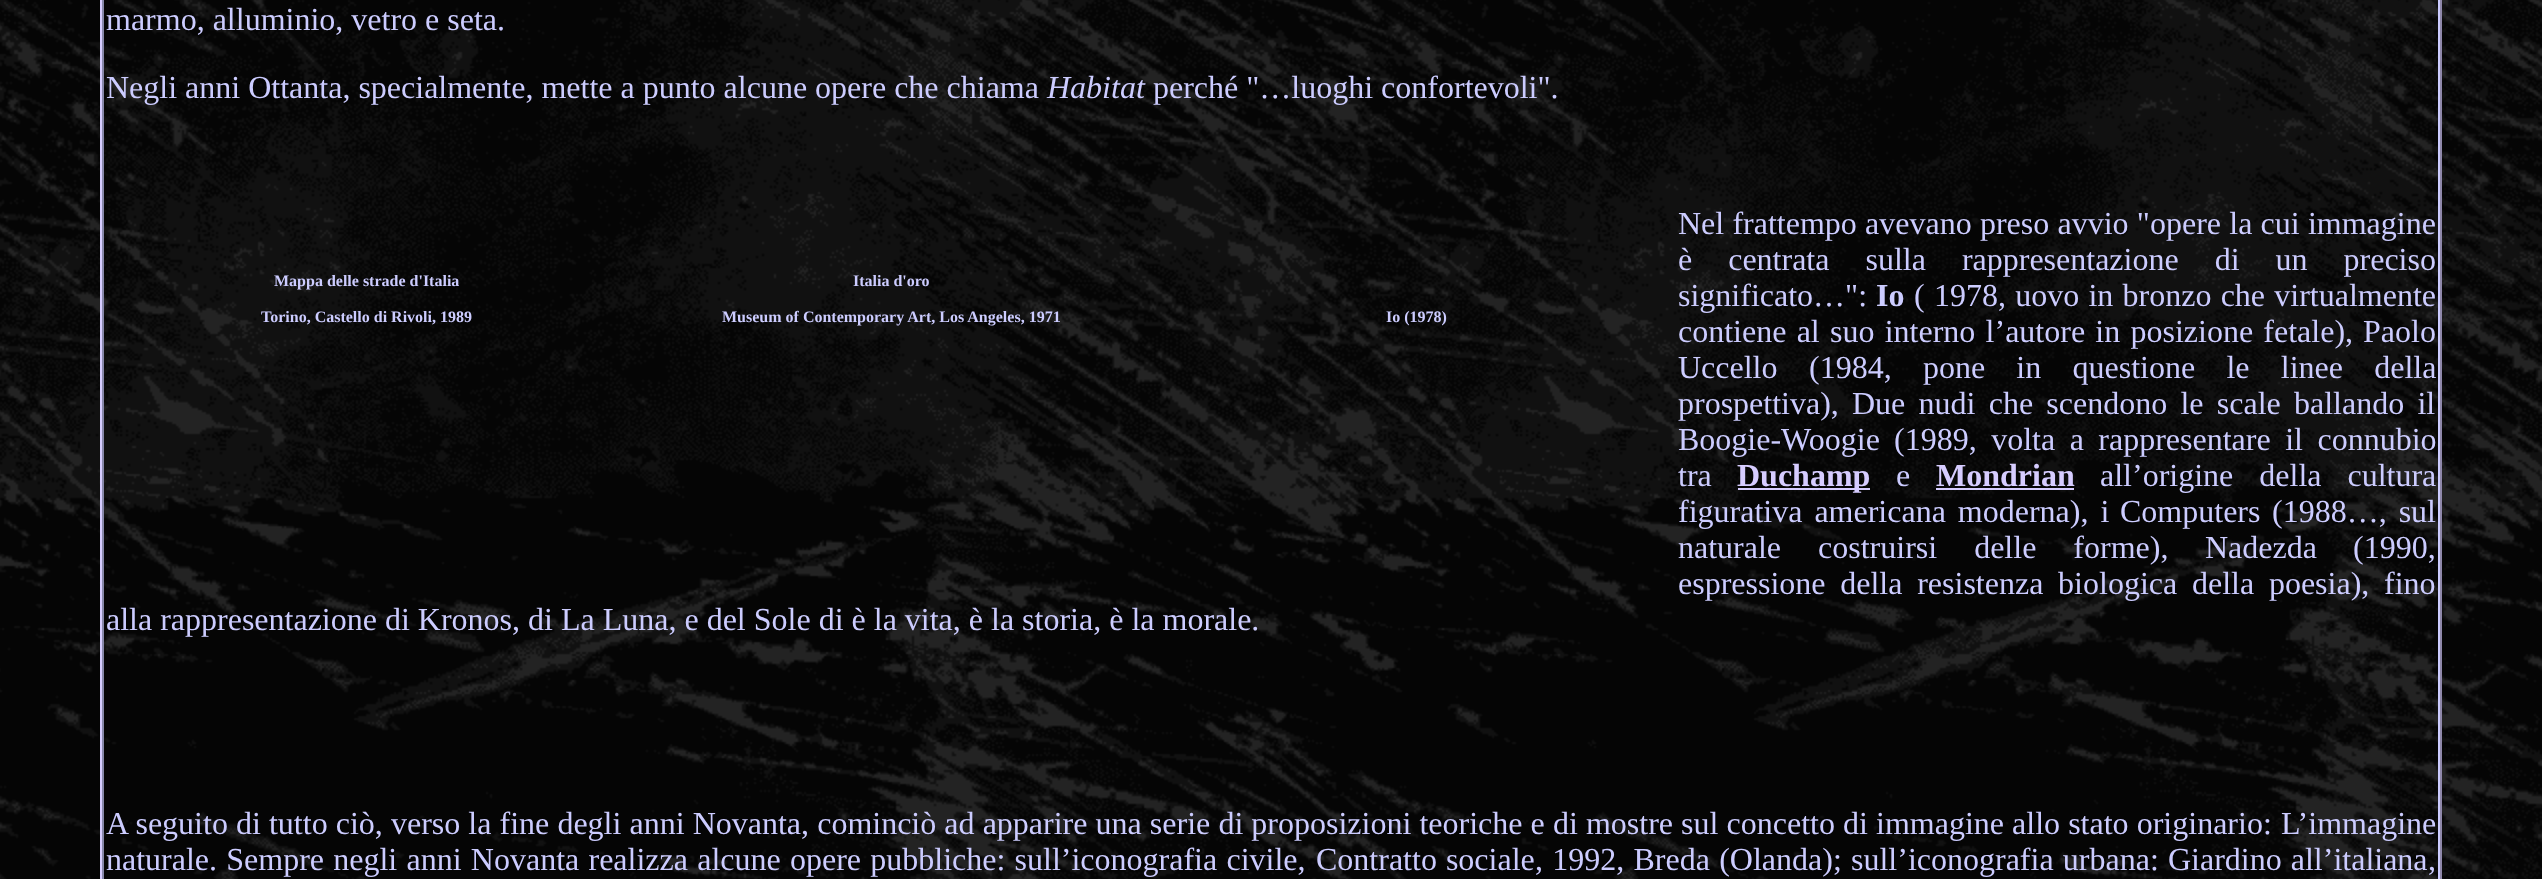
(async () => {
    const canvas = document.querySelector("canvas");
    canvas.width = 2542;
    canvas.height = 879;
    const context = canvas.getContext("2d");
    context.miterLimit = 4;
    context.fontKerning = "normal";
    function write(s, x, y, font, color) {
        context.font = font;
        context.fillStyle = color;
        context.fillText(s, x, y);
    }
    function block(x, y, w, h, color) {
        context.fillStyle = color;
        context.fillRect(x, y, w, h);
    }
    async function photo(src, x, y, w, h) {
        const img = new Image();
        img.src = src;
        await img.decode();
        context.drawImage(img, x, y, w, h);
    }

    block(0, 0, 2542, 879, "rgb(255, 255, 255)");
    await photo("media/1.png", 0, 0, 2542, 879);
    block(2440, 0, 2, 879, "rgb(143, 136, 170)");
    block(100, 0, 2, 879, "rgb(214, 204, 255)");
    block(2438, 0, 2, 879, "rgb(204, 204, 255)");
    block(102, 0, 2, 879, "rgb(136, 136, 170)");
    write("marmo, alluminio, vetro e seta.", 106, 30, "32px Liberation Serif", "rgb(204, 204, 255)");
    write("Negli anni Ottanta, specialmente, mette a punto alcune opere che chiama", 106, 98, "32px Liberation Serif", "rgb(204, 204, 255)");
    write("Habitat", 1047, 98, "italic 32px Liberation Serif", "rgb(204, 204, 255)");
    write("perché \"…luoghi confortevoli\".", 1153, 98, "32px Liberation Serif", "rgb(204, 204, 255)");
    context.wordSpacing = "0.25px";
    write("Nel frattempo avevano preso avvio \"opere la cui immagine", 1678, 234, "32px Liberation Serif", "rgb(204, 204, 255)");
    context.wordSpacing = "28px";
    write("è centrata sulla rappresentazione di un preciso", 1678, 270, "32px Liberation Serif", "rgb(204, 204, 255)");
    context.wordSpacing = "0px";
    write("significato…\":", 1678, 306, "32px Liberation Serif", "rgb(204, 204, 255)");
    write("Io", 1876, 306, "bold 32px Liberation Serif", "rgb(204, 204, 255)");
    context.wordSpacing = "1.25px";
    write("( 1978, uovo in bronzo che virtualmente", 1914, 306, "32px Liberation Serif", "rgb(204, 204, 255)");
    context.wordSpacing = "2.25px";
    write("contiene al suo interno l’autore in posizione fetale),", 1678, 342, "32px Liberation Serif", "rgb(204, 204, 255)");
    context.wordSpacing = "0px";
    write("Paolo", 2363, 342, "32px Liberation Serif", "rgb(204, 204, 255)");
    write("Uccello", 1678, 378, "32px Liberation Serif", "rgb(204, 204, 255)");
    context.wordSpacing = "23.25px";
    write("(1984, pone in questione le linee della", 1809, 378, "32px Liberation Serif", "rgb(204, 204, 255)");
    context.wordSpacing = "0px";
    write("prospettiva),", 1678, 414, "32px Liberation Serif", "rgb(204, 204, 255)");
    context.wordSpacing = "5.25px";
    write("Due nudi che scendono le scale ballando il", 1852, 414, "32px Liberation Serif", "rgb(204, 204, 255)");
    context.wordSpacing = "0px";
    write("Boogie-Woogie", 1678, 450, "32px Liberation Serif", "rgb(204, 204, 255)");
    context.wordSpacing = "6.5px";
    write("(1989, volta a rappresentare il connubio", 1894, 450, "32px Liberation Serif", "rgb(204, 204, 255)");
    context.wordSpacing = "0px";
    write("tra", 1678, 486, "32px Liberation Serif", "rgb(204, 204, 255)");
    block(1738, 488, 132, 2, "rgb(214, 204, 255)");
    write("Duchamp", 1737, 486, "bold 32px Liberation Serif", "rgb(214, 204, 255)");
    write("e", 1896, 486, "32px Liberation Serif", "rgb(204, 204, 255)");
    write("Mondrian", 1936, 486, "bold 32px Liberation Serif", "rgb(214, 204, 255)");
    block(1936, 488, 138, 2, "rgb(214, 204, 255)");
    context.wordSpacing = "18px";
    write("all’origine della cultura", 2100, 486, "32px Liberation Serif", "rgb(204, 204, 255)");
    context.wordSpacing = "4px";
    write("figurativa americana moderna), i", 1678, 522, "32px Liberation Serif", "rgb(204, 204, 255)");
    context.wordSpacing = "0px";
    write("Computers", 2120, 522, "32px Liberation Serif", "rgb(204, 204, 255)");
    context.wordSpacing = "4px";
    write("(1988…, sul", 2272, 522, "32px Liberation Serif", "rgb(204, 204, 255)");
    context.wordSpacing = "29px";
    write("naturale costruirsi delle forme),", 1678, 558, "32px Liberation Serif", "rgb(204, 204, 255)");
    context.wordSpacing = "0px";
    write("Nadezda", 2205, 558, "32px Liberation Serif", "rgb(204, 204, 255)");
    write("(1990,", 2353, 558, "32px Liberation Serif", "rgb(204, 204, 255)");
    context.wordSpacing = "6.75px";
    write("espressione della resistenza biologica della poesia), fino", 1678, 594, "32px Liberation Serif", "rgb(204, 204, 255)");
    context.wordSpacing = "0px";
    write("alla rappresentazione di Kronos, di La Luna, e del Sole di è la vita, è la storia, è la morale.", 106, 630, "32px Liberation Serif", "rgb(204, 204, 255)");
    write("Mappa delle strade d'Italia", 274, 286, "bold 16px Liberation Serif", "rgb(204, 204, 255)");
    write("Torino, Castello di Rivoli, 1989", 261, 322, "bold 16px Liberation Serif", "rgb(204, 204, 255)");
    write("Italia d'oro", 853, 286, "bold 16px Liberation Serif", "rgb(204, 204, 255)");
    write("Museum of Contemporary Art, Los Angeles, 1971", 722, 322, "bold 16px Liberation Serif", "rgb(204, 204, 255)");
    write("Io (1978)", 1386, 322, "bold 16px Liberation Serif", "rgb(204, 204, 255)");
    context.wordSpacing = "0.1px";
    write("A seguito di tutto ciò, verso la fine degli anni Novanta, cominciò ad apparire una serie di proposizioni teoriche e di mostre sul concetto di immagine allo stato originario:", 106, 834, "32px Liberation Serif", "rgb(204, 204, 255)");
    context.wordSpacing = "0px";
    write("L’immagine", 2281, 834, "32px Liberation Serif", "rgb(204, 204, 255)");
    write("naturale", 106, 870, "32px Liberation Serif", "rgb(204, 204, 255)");
    context.wordSpacing = "1.25px";
    write(". Sempre negli anni Novanta realizza alcune opere pubbliche: sull’iconografia civile,", 209, 870, "32px Liberation Serif", "rgb(204, 204, 255)");
    context.wordSpacing = "1px";
    write("Contratto sociale", 1316, 870, "32px Liberation Serif", "rgb(204, 204, 255)");
    context.wordSpacing = "1.25px";
    write(", 1992, Breda (Olanda); sull’iconografia urbana:", 1535, 870, "32px Liberation Serif", "rgb(204, 204, 255)");
    context.wordSpacing = "1px";
    write("Giardino all’italiana", 2168, 870, "32px Liberation Serif", "rgb(204, 204, 255)");
    context.wordSpacing = "0px";
    write(",", 2428, 870, "32px Liberation Serif", "rgb(204, 204, 255)");
})();
